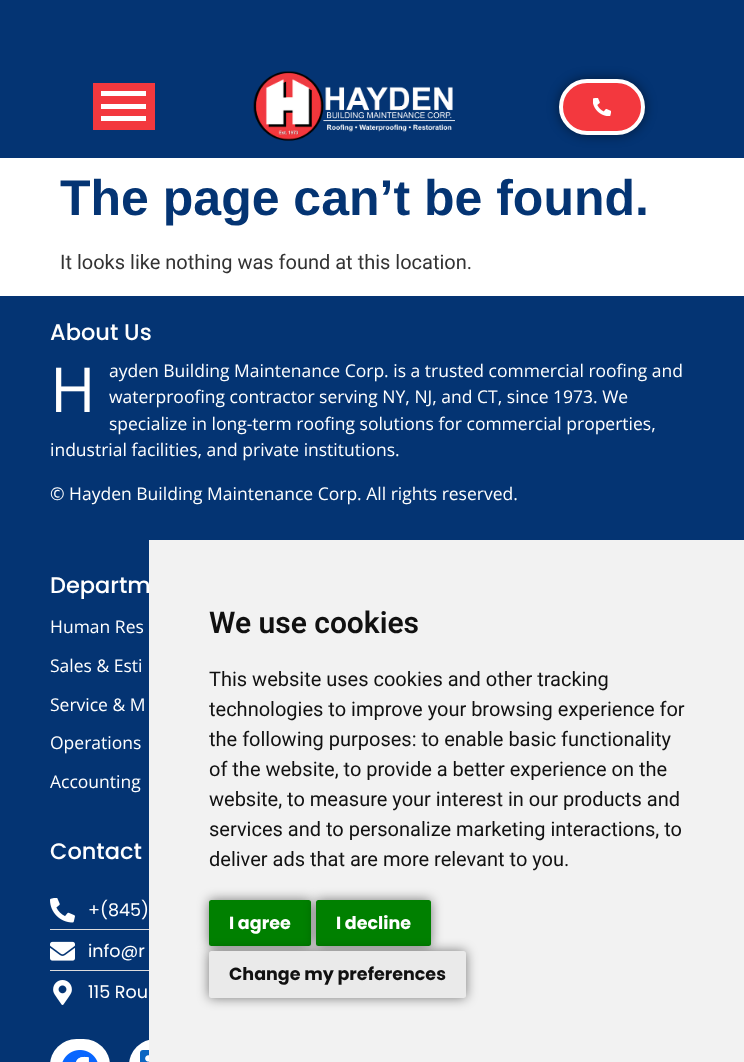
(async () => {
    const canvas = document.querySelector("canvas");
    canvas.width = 744;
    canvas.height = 1062;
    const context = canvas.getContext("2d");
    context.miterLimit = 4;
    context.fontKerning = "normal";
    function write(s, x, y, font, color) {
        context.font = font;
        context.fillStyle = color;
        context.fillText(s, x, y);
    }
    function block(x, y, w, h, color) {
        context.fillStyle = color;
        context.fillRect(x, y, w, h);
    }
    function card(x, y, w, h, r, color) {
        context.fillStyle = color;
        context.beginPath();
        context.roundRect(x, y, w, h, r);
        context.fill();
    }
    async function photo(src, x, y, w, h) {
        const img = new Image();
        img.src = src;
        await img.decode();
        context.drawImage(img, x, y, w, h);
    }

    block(0, 0, 744, 1062, "rgb(255, 255, 255)");
    block(0, 0, 744, 158, "rgb(4, 52, 115)");
    block(93, 83, 62, 47, "rgb(243, 56, 62)");
    block(101, 91, 45, 5, "rgb(255, 255, 255)");
    block(101, 104, 45, 5, "rgb(255, 255, 255)");
    block(101, 116, 45, 5, "rgb(255, 255, 255)");
    await photo("media/1.png", 253, 71, 202, 70);
    context.fillStyle = "rgba(0, 0, 0, 0.5)";
    context.filter = "blur(6px)";
    context.beginPath();
    context.roundRect(559, 79, 86, 56, 28);
    context.fill();
    context.filter = "none";
    context.fillStyle = "rgb(243, 56, 62)";
    context.beginPath();
    context.roundRect(561, 81, 82, 52, 26);
    context.fill();
    context.strokeStyle = "rgb(255, 255, 255)";
    context.lineWidth = 4;
    context.stroke();
    await photo("media/2.png", 593, 98, 18, 18);
    write("The page can’t be found.", 60, 215, "bold 50px Liberation Sans", "rgb(4, 52, 115)");
    write("It looks like nothing was found at this location.", 60, 269, "20px Roboto", "rgb(51, 51, 51)");
    block(0, 296, 744, 766, "rgb(4, 52, 115)");
    write("About Us", 50, 340, "500 22.5px Poppins", "rgb(255, 255, 255)");
    write("H", 50, 412, "62px Open Sans", "rgb(255, 255, 255)");
    write("ayden Building Maintenance Corp. is a trusted commercial roofing and", 109, 377, "17.5px Open Sans", "rgb(255, 255, 255)");
    write("waterproofing contractor serving NY, NJ, and CT, since 1973. We", 109, 403, "17.5px Open Sans", "rgb(255, 255, 255)");
    write("specialize in long-term roofing solutions for commercial properties,", 109, 430, "17.5px Open Sans", "rgb(255, 255, 255)");
    write("industrial facilities, and private institutions.", 50, 456, "17.5px Open Sans", "rgb(255, 255, 255)");
    write("© Hayden Building Maintenance Corp. All rights reserved.", 50, 500, "17.5px Open Sans", "rgb(255, 255, 255)");
    write("Departm", 50, 593, "500 22.5px Poppins", "rgb(255, 255, 255)");
    write("Human Res", 50, 633, "17.5px Open Sans", "rgb(255, 255, 255)");
    write("Sales & Esti", 50, 672, "17.5px Open Sans", "rgb(255, 255, 255)");
    write("Service & M", 50, 711, "17.5px Open Sans", "rgb(255, 255, 255)");
    write("Operations", 50, 749, "17.5px Open Sans", "rgb(255, 255, 255)");
    write("Accounting", 50, 788, "17.5px Open Sans", "rgb(255, 255, 255)");
    write("Contact", 50, 859, "500 22.5px Poppins", "rgb(255, 255, 255)");
    await photo("media/3.png", 50, 898, 25, 25);
    write("+(845)", 88, 916, "17.5px Poppins", "rgb(255, 255, 255)");
    block(50, 929, 99, 1, "rgb(221, 221, 221)");
    await photo("media/4.png", 50, 941, 25, 20);
    write("info@r", 88, 957, "17.5px Poppins", "rgb(255, 255, 255)");
    block(50, 970, 99, 1, "rgb(221, 221, 221)");
    await photo("media/5.png", 53, 980, 19, 25);
    write("115 Rou", 88, 998, "17.5px Poppins", "rgb(255, 255, 255)");
    card(50, 1039, 60, 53, 30, "rgb(255, 255, 255)");
    await photo("media/6.png", 62, 1050, 36, 12);
    card(129, 1039, 60, 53, 30, "rgb(255, 255, 255)");
    await photo("media/7.png", 140, 1050, 9, 12);
    block(149, 540, 595, 522, "rgb(242, 242, 242)");
    write("We use cookies", 209, 633, "600 30px Roboto", "rgb(17, 17, 17)");
    write("This website uses cookies and other tracking", 209, 686, "20px Roboto", "rgb(17, 17, 17)");
    write("technologies to improve your browsing experience for", 209, 716, "20px Roboto", "rgb(17, 17, 17)");
    write("the following purposes: to enable basic functionality", 209, 746, "20px Roboto", "rgb(17, 17, 17)");
    write("of the website, to provide a better experience on the", 209, 776, "20px Roboto", "rgb(17, 17, 17)");
    write("website, to measure your interest in our products and", 209, 806, "20px Roboto", "rgb(17, 17, 17)");
    write("services and to personalize marketing interactions, to", 209, 836, "20px Roboto", "rgb(17, 17, 17)");
    write("deliver ads that are more relevant to you.", 209, 866, "20px Roboto", "rgb(17, 17, 17)");
    context.fillStyle = "rgba(0, 0, 0, 0.5)";
    context.filter = "blur(6px)";
    context.beginPath();
    context.roundRect(209, 900, 102, 46, 2.5);
    context.fill();
    context.filter = "none";
    card(209, 900, 102, 46, 2.5, "rgb(0, 128, 0)");
    write("I agree", 229, 929, "bold 17.5px Poppins", "rgb(255, 255, 255)");
    context.fillStyle = "rgba(0, 0, 0, 0.5)";
    context.filter = "blur(6px)";
    context.beginPath();
    context.roundRect(316, 900, 115, 46, 2.5);
    context.fill();
    context.filter = "none";
    card(316, 900, 115, 46, 2.5, "rgb(0, 128, 0)");
    write("I decline", 336, 929, "bold 17.5px Poppins", "rgb(255, 255, 255)");
    context.fillStyle = "rgba(0, 0, 0, 0.5)";
    context.filter = "blur(6px)";
    context.beginPath();
    context.roundRect(209, 951, 257, 47, 2.5);
    context.fill();
    context.filter = "none";
    card(209, 951, 257, 47, 2.5, "rgb(234, 234, 234)");
    write("Change my preferences", 229, 980, "bold 17.5px Poppins", "rgb(17, 17, 17)");
})();
